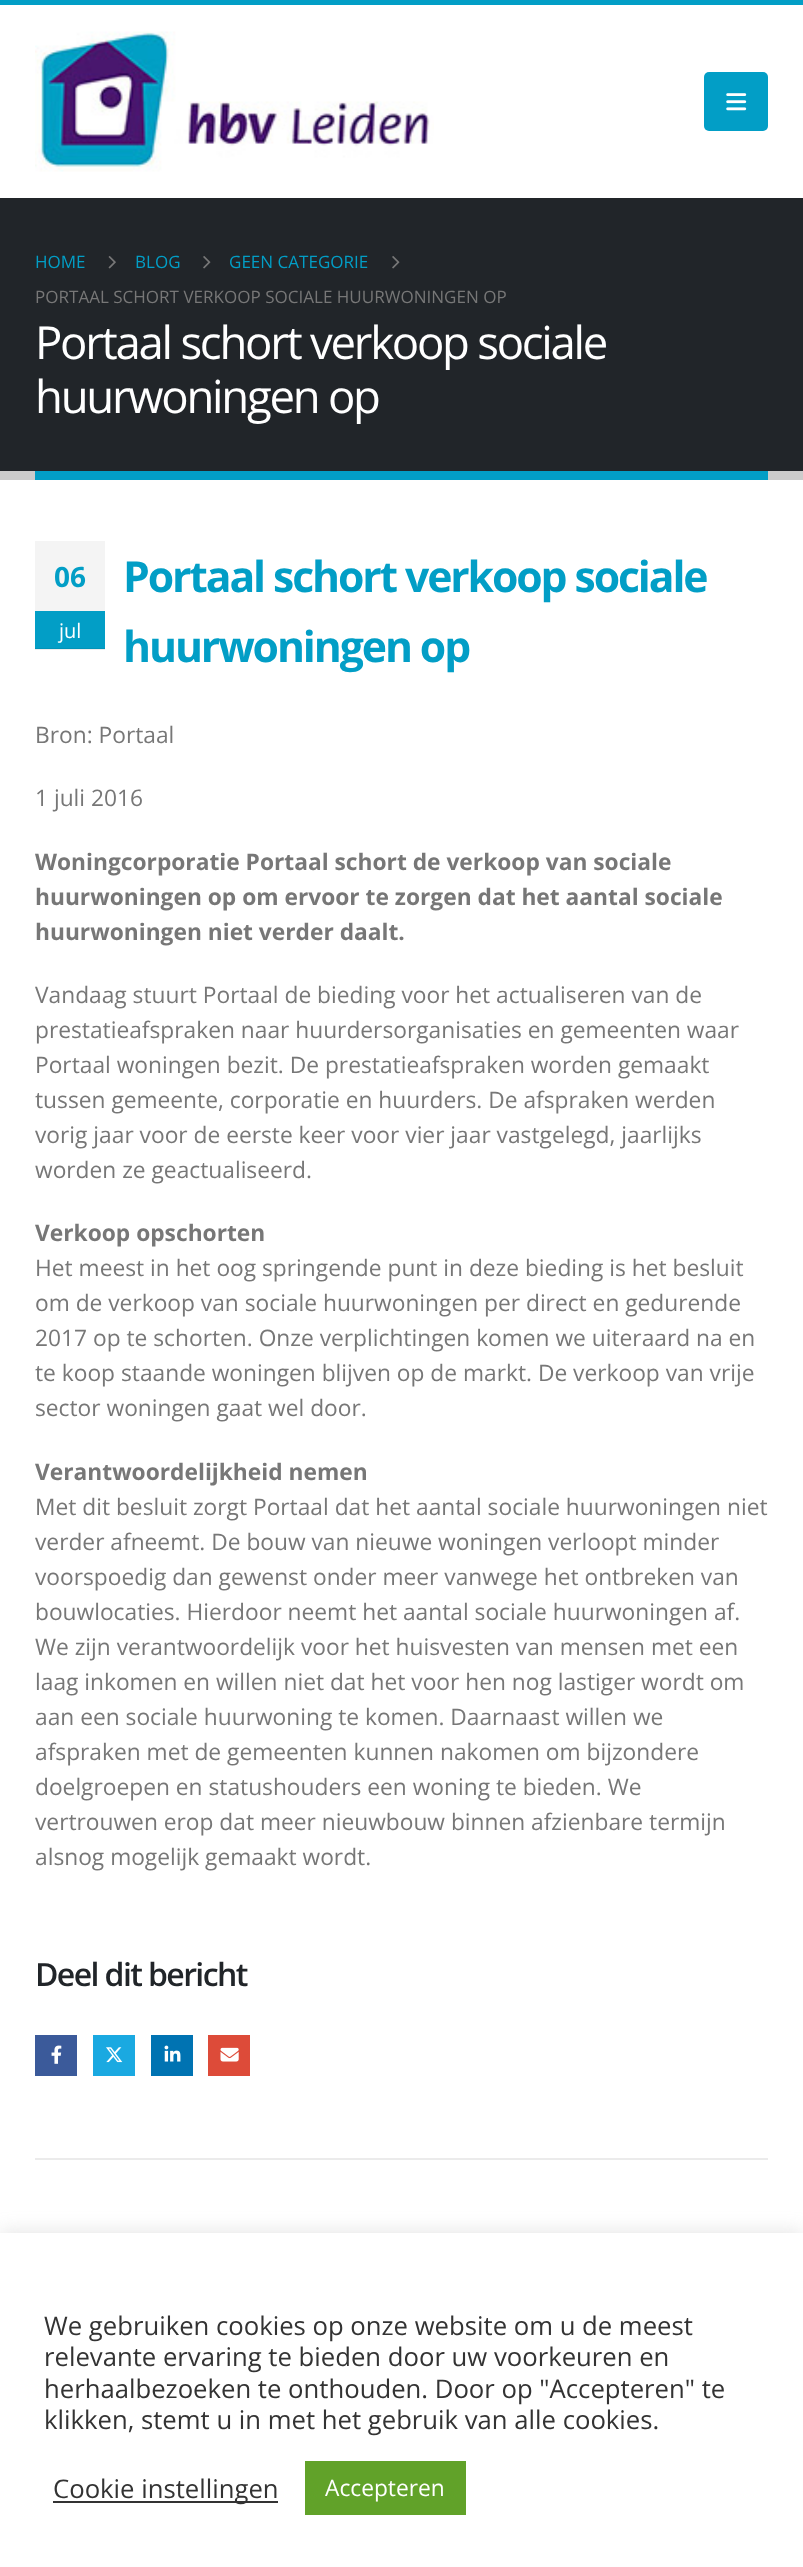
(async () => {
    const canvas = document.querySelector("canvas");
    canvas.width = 803;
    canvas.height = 2567;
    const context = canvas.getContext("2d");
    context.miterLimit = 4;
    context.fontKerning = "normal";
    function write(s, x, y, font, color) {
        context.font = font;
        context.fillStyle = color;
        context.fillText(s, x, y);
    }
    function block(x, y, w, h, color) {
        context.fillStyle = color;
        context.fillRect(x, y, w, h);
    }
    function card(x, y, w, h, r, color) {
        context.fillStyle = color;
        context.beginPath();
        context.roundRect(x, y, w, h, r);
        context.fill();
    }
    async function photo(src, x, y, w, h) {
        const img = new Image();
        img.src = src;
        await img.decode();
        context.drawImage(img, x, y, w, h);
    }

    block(0, 0, 803, 2567, "rgb(255, 255, 255)");
    block(35, 649, 70, 1, "rgb(237, 237, 237)");
    block(0, 0, 803, 5, "rgb(2, 158, 198)");
    await photo("media/1.png", 35, 31, 399, 141);
    card(704, 72, 64, 59, 5, "rgb(2, 158, 198)");
    await photo("media/2.png", 726, 93, 21, 18);
    block(0, 198, 803, 273, "rgb(33, 37, 41)");
    block(0, 471, 803, 9, "rgb(204, 204, 204)");
    write("HOME", 35, 268, "17.05px Open Sans", "rgb(2, 158, 198)");
    await photo("media/3.png", 108, 256, 8, 13);
    write("BLOG", 135, 268, "17.05px Open Sans", "rgb(2, 158, 198)");
    await photo("media/4.png", 203, 256, 8, 13);
    write("GEEN CATEGORIE", 229, 268, "17.05px Open Sans", "rgb(2, 158, 198)");
    await photo("media/4.png", 392, 256, 8, 13);
    write("PORTAAL SCHORT VERKOOP SOCIALE HUURWONINGEN OP", 35, 303, "17.05px Open Sans", "rgb(119, 119, 119)");
    context.letterSpacing = "-2.25px";
    write("Portaal schort verkoop sociale", 35, 359, "45.5px Open Sans", "rgb(255, 255, 255)");
    write("huurwoningen op", 35, 413, "45.5px Open Sans", "rgb(255, 255, 255)");
    block(35, 471, 733, 9, "rgb(2, 158, 198)");
    context.letterSpacing = "-2.1px";
    write("Portaal schort verkoop sociale", 123, 592, "bold 42.7px Open Sans", "rgb(2, 158, 198)");
    write("huurwoningen op", 123, 662, "bold 42.7px Open Sans", "rgb(2, 158, 198)");
    context.letterSpacing = "0px";
    write("Bron: Portaal", 35, 743, "22.75px Open Sans", "rgb(119, 119, 119)");
    write("1 juli 2016", 35, 806, "22.75px Open Sans", "rgb(119, 119, 119)");
    write("Woningcorporatie Portaal schort de verkoop van sociale", 35, 870, "bold 22.75px Open Sans", "rgb(119, 119, 119)");
    write("huurwoningen op om ervoor te zorgen dat het aantal sociale", 35, 905, "bold 22.75px Open Sans", "rgb(119, 119, 119)");
    write("huurwoningen niet verder daalt.", 35, 940, "bold 22.75px Open Sans", "rgb(119, 119, 119)");
    write("Vandaag stuurt Portaal de bieding voor het actualiseren van de", 35, 1003, "22.75px Open Sans", "rgb(119, 119, 119)");
    write("prestatieafspraken naar huurdersorganisaties en gemeenten waar", 35, 1038, "22.75px Open Sans", "rgb(119, 119, 119)");
    write("Portaal woningen bezit. De prestatieafspraken worden gemaakt", 35, 1073, "22.75px Open Sans", "rgb(119, 119, 119)");
    write("tussen gemeente, corporatie en huurders. De afspraken werden", 35, 1108, "22.75px Open Sans", "rgb(119, 119, 119)");
    write("vorig jaar voor de eerste keer voor vier jaar vastgelegd, jaarlijks", 35, 1143, "22.75px Open Sans", "rgb(119, 119, 119)");
    write("worden ze geactualiseerd.", 35, 1178, "22.75px Open Sans", "rgb(119, 119, 119)");
    write("Verkoop opschorten", 35, 1241, "bold 22.75px Open Sans", "rgb(119, 119, 119)");
    write("Het meest in het oog springende punt in deze bieding is het besluit", 35, 1276, "22.75px Open Sans", "rgb(119, 119, 119)");
    write("om de verkoop van sociale huurwoningen per direct en gedurende", 35, 1311, "22.75px Open Sans", "rgb(119, 119, 119)");
    write("2017 op te schorten. Onze verplichtingen komen we uiteraard na en", 35, 1346, "22.75px Open Sans", "rgb(119, 119, 119)");
    write("te koop staande woningen blijven op de markt. De verkoop van vrije", 35, 1381, "22.75px Open Sans", "rgb(119, 119, 119)");
    write("sector woningen gaat wel door.", 35, 1416, "22.75px Open Sans", "rgb(119, 119, 119)");
    write("Verantwoordelijkheid nemen", 35, 1480, "bold 22.75px Open Sans", "rgb(119, 119, 119)");
    write("Met dit besluit zorgt Portaal dat het aantal sociale huurwoningen niet", 35, 1515, "22.75px Open Sans", "rgb(119, 119, 119)");
    write("verder afneemt. De bouw van nieuwe woningen verloopt minder", 35, 1550, "22.75px Open Sans", "rgb(119, 119, 119)");
    write("voorspoedig dan gewenst onder meer vanwege het ontbreken van", 35, 1585, "22.75px Open Sans", "rgb(119, 119, 119)");
    write("bouwlocaties. Hierdoor neemt het aantal sociale huurwoningen af.", 35, 1620, "22.75px Open Sans", "rgb(119, 119, 119)");
    write("We zijn verantwoordelijk voor het huisvesten van mensen met een", 35, 1655, "22.75px Open Sans", "rgb(119, 119, 119)");
    write("laag inkomen en willen niet dat het voor hen nog lastiger wordt om", 35, 1690, "22.75px Open Sans", "rgb(119, 119, 119)");
    write("aan een sociale huurwoning te komen. Daarnaast willen we", 35, 1725, "22.75px Open Sans", "rgb(119, 119, 119)");
    write("afspraken met de gemeenten kunnen nakomen om bijzondere", 35, 1760, "22.75px Open Sans", "rgb(119, 119, 119)");
    write("doelgroepen en statushouders een woning te bieden. We", 35, 1795, "22.75px Open Sans", "rgb(119, 119, 119)");
    write("vertrouwen erop dat meer nieuwbouw binnen afzienbare termijn", 35, 1830, "22.75px Open Sans", "rgb(119, 119, 119)");
    write("alsnog mogelijk gemaakt wordt.", 35, 1865, "22.75px Open Sans", "rgb(119, 119, 119)");
    block(35, 541, 70, 70, "rgb(244, 244, 244)");
    write("06", 54, 587, "bold 28px Open Sans", "rgb(2, 158, 198)");
    block(35, 611, 70, 37, "rgb(2, 158, 198)");
    block(35, 648, 70, 1, "rgb(2, 147, 184)");
    write("jul", 59, 638, "20px Open Sans", "rgb(255, 255, 255)");
    context.letterSpacing = "-1.6px";
    write("Deel dit bericht", 35, 1986, "600 32px Open Sans", "rgb(33, 37, 41)");
    block(35, 2035, 42, 41, "rgb(59, 90, 154)");
    await photo("media/5.png", 51, 2045, 11, 19);
    block(93, 2035, 42, 41, "rgb(26, 169, 225)");
    await photo("media/6.png", 106, 2047, 17, 16);
    block(151, 2035, 42, 41, "rgb(0, 115, 178)");
    await photo("media/7.png", 164, 2045, 17, 17);
    block(208, 2035, 42, 41, "rgb(221, 75, 57)");
    await photo("media/8.png", 220, 2047, 19, 15);
    block(35, 2158, 733, 2, "rgb(235, 235, 235)");
    context.fillStyle = "rgba(172, 171, 171, 0.3)";
    context.filter = "blur(9px)";
    context.beginPath();
    context.rect(0, 2231, 803, 335);
    context.fill();
    context.filter = "none";
    block(0, 2233, 803, 334, "rgb(255, 255, 255)");
    context.letterSpacing = "0px";
    write("We gebruiken cookies op onze website om u de meest", 44, 2335, "25.7px Open Sans", "rgb(51, 51, 51)");
    write("relevante ervaring te bieden door uw voorkeuren en", 44, 2366, "25.7px Open Sans", "rgb(51, 51, 51)");
    write("herhaalbezoeken te onthouden. Door op \"Accepteren\" te", 44, 2398, "25.7px Open Sans", "rgb(51, 51, 51)");
    write("klikken, stemt u in met het gebruik van alle cookies.", 44, 2429, "25.7px Open Sans", "rgb(51, 51, 51)");
    block(53, 2501, 225, 2, "rgb(51, 51, 51)");
    write("Cookie instellingen", 53, 2498, "25.7px Open Sans", "rgb(51, 51, 51)");
    block(305, 2461, 161, 54, "rgb(97, 162, 41)");
    write("Accepteren", 325, 2496, "22.75px Open Sans", "rgb(255, 255, 255)");
})();
